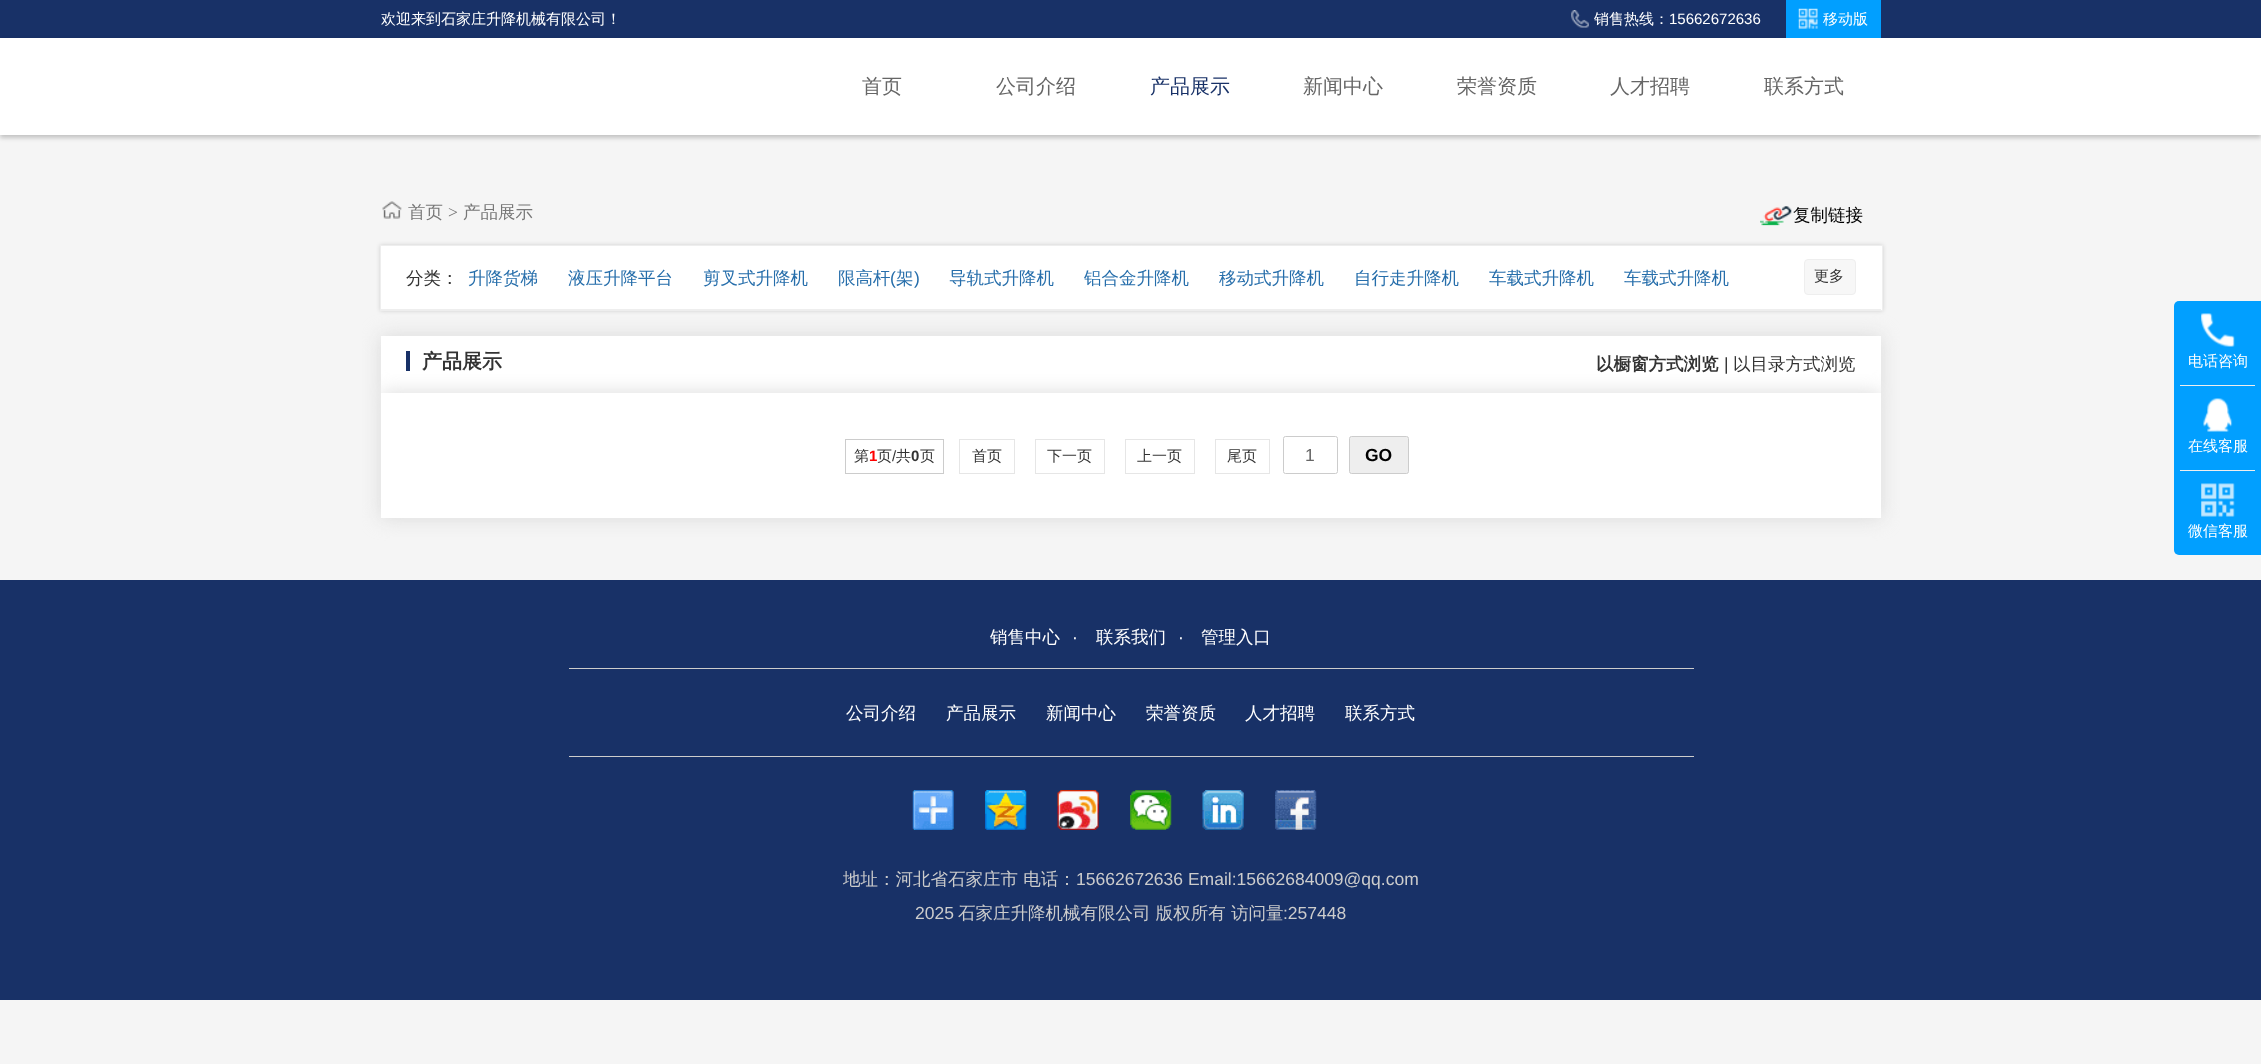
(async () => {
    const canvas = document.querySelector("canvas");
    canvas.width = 2261;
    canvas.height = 1064;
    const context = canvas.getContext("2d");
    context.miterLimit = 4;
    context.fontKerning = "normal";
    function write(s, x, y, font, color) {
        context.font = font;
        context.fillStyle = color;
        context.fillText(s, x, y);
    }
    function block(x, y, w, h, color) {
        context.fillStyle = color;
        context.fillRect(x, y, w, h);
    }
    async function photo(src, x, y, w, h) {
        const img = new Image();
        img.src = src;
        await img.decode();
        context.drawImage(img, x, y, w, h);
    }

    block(0, 0, 2261, 1064, "rgb(245, 245, 245)");
    block(0, 0, 2261, 38, "rgb(24, 49, 103)");
    write("欢迎来到石家庄升降机械有限公司！", 381, 24, "500 15px WenQuanYi Zen Hei", "rgb(255, 255, 255)");
    await photo("media/1.png", 1571, 10, 18, 18);
    write("销售热线：", 1594, 24, "500 15px WenQuanYi Zen Hei", "rgb(255, 255, 255)");
    write("15662672636", 1669, 24, "15px Liberation Sans", "rgb(255, 255, 255)");
    context.fillStyle = "rgba(0, 0, 0, 0.2)";
    context.filter = "blur(2px)";
    context.beginPath();
    context.rect(0, 40, 2261, 98);
    context.fill();
    context.filter = "none";
    block(1786, 0, 95, 38, "rgb(1, 159, 255)");
    await photo("media/2.png", 1798, 8, 20, 21);
    write("移动版", 1823, 24, "500 15px WenQuanYi Zen Hei", "rgb(255, 255, 255)");
    block(0, 38, 2261, 97, "rgb(255, 255, 255)");
    write("首页", 862, 93, "500 20px WenQuanYi Zen Hei", "rgb(102, 102, 102)");
    write("公司介绍", 996, 93, "500 20px WenQuanYi Zen Hei", "rgb(102, 102, 102)");
    write("产品展示", 1150, 93, "500 20px WenQuanYi Zen Hei", "rgb(24, 49, 103)");
    write("新闻中心", 1303, 93, "500 20px WenQuanYi Zen Hei", "rgb(102, 102, 102)");
    write("荣誉资质", 1457, 93, "500 20px WenQuanYi Zen Hei", "rgb(102, 102, 102)");
    write("人才招聘", 1610, 93, "500 20px WenQuanYi Zen Hei", "rgb(102, 102, 102)");
    write("联系方式", 1764, 93, "500 20px WenQuanYi Zen Hei", "rgb(102, 102, 102)");
    await photo("media/3.png", 382, 201, 20, 18);
    write("首页", 408, 218, "500 17.5px WenQuanYi Zen Hei", "rgb(119, 119, 119)");
    write(">", 448, 218, "17.5px Liberation Serif", "rgb(119, 119, 119)");
    write("产品展示", 463, 218, "500 17.5px WenQuanYi Zen Hei", "rgb(119, 119, 119)");
    await photo("media/4.png", 1760, 206, 32, 20);
    write("复制链接", 1793, 221, "500 17.5px WenQuanYi Zen Hei", "rgb(0, 0, 0)");
    context.fillStyle = "rgba(0, 0, 0, 0.15)";
    context.filter = "blur(2px)";
    context.beginPath();
    context.rect(380, 245, 1503, 66);
    context.fill();
    context.filter = "none";
    context.fillStyle = "rgb(255, 255, 255)";
    context.beginPath();
    context.rect(380.5, 245.5, 1502, 65);
    context.fill();
    context.strokeStyle = "rgb(238, 238, 238)";
    context.stroke();
    context.fillStyle = "rgb(218, 218, 218)";
    context.filter = "blur(9.5px)";
    context.beginPath();
    context.rect(381, 336, 1500, 57);
    context.fill();
    context.filter = "none";
    block(381, 309, 1500, 1, "rgb(238, 238, 238)");
    write("分类：", 406, 284, "500 17.5px WenQuanYi Zen Hei", "rgb(51, 51, 51)");
    write("升降货梯", 468, 284, "500 17.5px WenQuanYi Zen Hei", "rgb(38, 110, 171)");
    write("液压升降平台", 568, 284, "500 17.5px WenQuanYi Zen Hei", "rgb(38, 110, 171)");
    write("剪叉式升降机", 703, 284, "500 17.5px WenQuanYi Zen Hei", "rgb(38, 110, 171)");
    write("限高杆", 838, 284, "500 17.5px WenQuanYi Zen Hei", "rgb(38, 110, 171)");
    write("(", 890, 284, "17.5px Liberation Sans", "rgb(38, 110, 171)");
    write("架", 896, 284, "500 17.5px WenQuanYi Zen Hei", "rgb(38, 110, 171)");
    write(")", 914, 284, "17.5px Liberation Sans", "rgb(38, 110, 171)");
    write("导轨式升降机", 949, 284, "500 17.5px WenQuanYi Zen Hei", "rgb(38, 110, 171)");
    write("铝合金升降机", 1084, 284, "500 17.5px WenQuanYi Zen Hei", "rgb(38, 110, 171)");
    write("移动式升降机", 1219, 284, "500 17.5px WenQuanYi Zen Hei", "rgb(38, 110, 171)");
    write("自行走升降机", 1354, 284, "500 17.5px WenQuanYi Zen Hei", "rgb(38, 110, 171)");
    write("车载式升降机", 1489, 284, "500 17.5px WenQuanYi Zen Hei", "rgb(38, 110, 171)");
    write("车载式升降机", 1624, 284, "500 17.5px WenQuanYi Zen Hei", "rgb(38, 110, 171)");
    context.fillStyle = "rgb(247, 247, 247)";
    context.beginPath();
    context.roundRect(1804.5, 259.5, 51, 35, 3.5);
    context.fill();
    context.stroke();
    write("更多", 1814, 281, "500 15px WenQuanYi Zen Hei", "rgb(51, 51, 51)");
    block(381, 336, 1500, 57, "rgb(255, 255, 255)");
    context.fillStyle = "rgb(218, 218, 218)";
    context.filter = "blur(9.5px)";
    context.beginPath();
    context.rect(381, 393, 1500, 125);
    context.fill();
    context.filter = "none";
    block(406, 351, 4, 20, "rgb(24, 49, 103)");
    write("产品展示", 422, 368, "bold 20px WenQuanYi Zen Hei", "rgb(51, 51, 51)");
    write("以橱窗方式浏览", 1596, 370, "bold 17.5px WenQuanYi Zen Hei", "rgb(51, 51, 51)");
    write("|", 1724, 370, "17.5px Liberation Sans", "rgb(51, 51, 51)");
    write("以目录方式浏览", 1733, 370, "500 17.5px WenQuanYi Zen Hei", "rgb(51, 51, 51)");
    block(381, 393, 1500, 125, "rgb(255, 255, 255)");
    write("第", 854, 461, "500 15px WenQuanYi Zen Hei", "rgb(51, 51, 51)");
    block(845, 439, 99, 1, "rgb(204, 204, 204)");
    block(845, 473, 75, 1, "rgb(204, 204, 204)");
    block(845, 439, 1, 35, "rgb(204, 204, 204)");
    write("1", 869, 461, "bold 15px Liberation Sans", "rgb(255, 0, 0)");
    write("页", 877, 461, "500 15px WenQuanYi Zen Hei", "rgb(51, 51, 51)");
    write("/", 892, 461, "15px Liberation Sans", "rgb(51, 51, 51)");
    write("共", 896, 461, "500 15px WenQuanYi Zen Hei", "rgb(51, 51, 51)");
    write("0", 911, 461, "bold 15px Liberation Sans", "rgb(51, 51, 51)");
    write("页", 920, 461, "500 15px WenQuanYi Zen Hei", "rgb(51, 51, 51)");
    block(943, 439, 1, 35, "rgb(204, 204, 204)");
    block(920, 473, 24, 1, "rgb(204, 204, 204)");
    context.strokeStyle = "rgb(230, 230, 230)";
    context.strokeRect(959.5, 439.5, 55, 34);
    write("首页", 972, 461, "500 15px WenQuanYi Zen Hei", "rgb(51, 51, 51)");
    context.strokeRect(1035.5, 439.5, 69, 34);
    write("下一页", 1047, 461, "500 15px WenQuanYi Zen Hei", "rgb(51, 51, 51)");
    context.strokeRect(1125.5, 439.5, 69, 34);
    write("上一页", 1137, 461, "500 15px WenQuanYi Zen Hei", "rgb(51, 51, 51)");
    context.strokeRect(1215.5, 439.5, 54, 34);
    write("尾页", 1227, 461, "500 15px WenQuanYi Zen Hei", "rgb(51, 51, 51)");
    context.beginPath();
    context.roundRect(1283.5, 436.5, 54, 37, 2);
    context.strokeStyle = "rgb(204, 204, 204)";
    context.stroke();
    write("1", 1305, 461, "17.5px Liberation Sans", "rgb(102, 102, 102)");
    context.fillStyle = "rgb(238, 238, 238)";
    context.beginPath();
    context.roundRect(1349.5, 436.5, 59, 37, 2);
    context.fill();
    context.stroke();
    write("GO", 1365, 461, "bold 17.5px Liberation Sans", "rgb(0, 0, 0)");
    context.fillStyle = "rgb(1, 159, 255)";
    context.beginPath();
    context.roundRect(2174, 301, 87, 254, [5, 0, 0, 5]);
    context.fill();
    await photo("media/5.png", 2201, 313, 34, 34);
    write("电话咨询", 2188, 366, "500 15px WenQuanYi Zen Hei", "rgb(255, 255, 255)");
    block(2180, 385, 75, 1, "rgb(238, 238, 238)");
    await photo("media/6.png", 2203, 398, 30, 34);
    write("在线客服", 2188, 451, "500 15px WenQuanYi Zen Hei", "rgb(255, 255, 255)");
    block(2180, 470, 75, 1, "rgb(238, 238, 238)");
    await photo("media/7.png", 2201, 483, 34, 34);
    write("微信客服", 2188, 536, "500 15px WenQuanYi Zen Hei", "rgb(255, 255, 255)");
    block(0, 580, 2261, 420, "rgb(24, 49, 103)");
    write("销售中心", 990, 643, "500 17.5px WenQuanYi Zen Hei", "rgb(255, 255, 255)");
    write("·", 1072, 643, "17.5px Liberation Sans", "rgb(255, 255, 255)");
    write("联系我们", 1096, 643, "500 17.5px WenQuanYi Zen Hei", "rgb(255, 255, 255)");
    write("·", 1178, 643, "17.5px Liberation Sans", "rgb(255, 255, 255)");
    write("管理入口", 1201, 643, "500 17.5px WenQuanYi Zen Hei", "rgb(255, 255, 255)");
    block(569, 668, 1125, 1, "rgb(204, 204, 204)");
    block(569, 756, 1125, 1, "rgb(204, 204, 204)");
    write("公司介绍", 846, 719, "500 17.5px WenQuanYi Zen Hei", "rgb(255, 255, 255)");
    write("产品展示", 946, 719, "500 17.5px WenQuanYi Zen Hei", "rgb(255, 255, 255)");
    write("新闻中心", 1046, 719, "500 17.5px WenQuanYi Zen Hei", "rgb(255, 255, 255)");
    write("荣誉资质", 1146, 719, "500 17.5px WenQuanYi Zen Hei", "rgb(255, 255, 255)");
    write("人才招聘", 1245, 719, "500 17.5px WenQuanYi Zen Hei", "rgb(255, 255, 255)");
    write("联系方式", 1345, 719, "500 17.5px WenQuanYi Zen Hei", "rgb(255, 255, 255)");
    await photo("media/8.png", 912, 790, 42, 40);
    await photo("media/9.png", 985, 790, 42, 40);
    await photo("media/10.png", 1057, 790, 42, 40);
    await photo("media/11.png", 1130, 790, 42, 40);
    await photo("media/12.png", 1202, 790, 42, 40);
    await photo("media/13.png", 1275, 790, 42, 40);
    write("地址：河北省石家庄市 电话：", 843, 885, "500 17.5px WenQuanYi Zen Hei", "rgb(204, 204, 204)");
    write("15662672636 Email:15662684009@qq.com", 1076, 885, "17.5px Liberation Sans", "rgb(204, 204, 204)");
    write("2025", 915, 919, "17.5px Liberation Sans", "rgb(204, 204, 204)");
    write("石家庄升降机械有限公司 版权所有 访问量", 958, 919, "500 17.5px WenQuanYi Zen Hei", "rgb(204, 204, 204)");
    write(":257448", 1283, 919, "17.5px Liberation Sans", "rgb(204, 204, 204)");
})();
